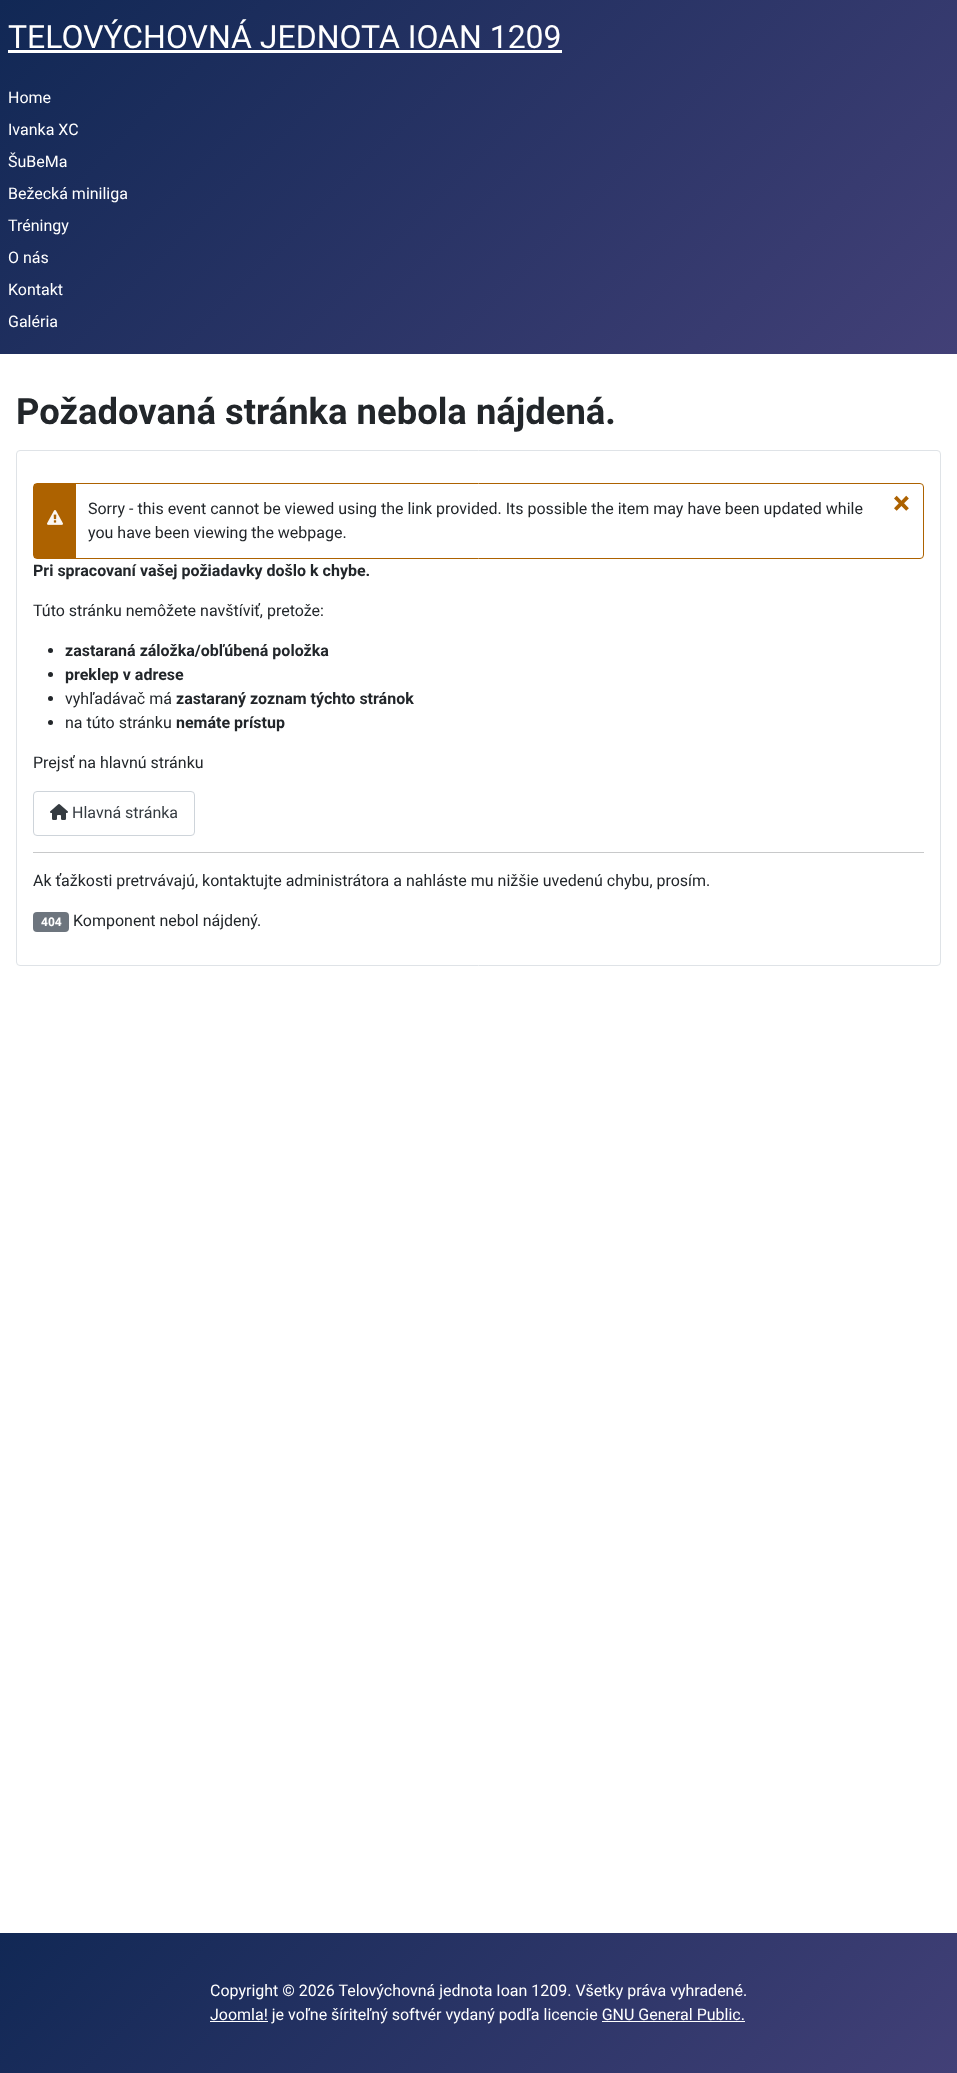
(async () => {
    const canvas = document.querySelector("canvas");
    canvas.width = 957;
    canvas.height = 2073;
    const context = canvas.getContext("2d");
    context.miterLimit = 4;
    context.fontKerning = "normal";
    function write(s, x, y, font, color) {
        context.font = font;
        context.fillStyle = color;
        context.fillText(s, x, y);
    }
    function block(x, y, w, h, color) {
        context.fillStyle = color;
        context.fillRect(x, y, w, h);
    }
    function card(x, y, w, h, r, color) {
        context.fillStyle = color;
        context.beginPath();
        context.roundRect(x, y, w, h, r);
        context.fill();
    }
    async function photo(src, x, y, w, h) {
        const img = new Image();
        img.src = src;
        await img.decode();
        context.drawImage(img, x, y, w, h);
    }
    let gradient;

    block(0, 0, 957, 2073, "rgb(255, 255, 255)");
    gradient = context.createLinearGradient(151, -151, 806, 505);
    gradient.addColorStop(0, "rgb(17, 40, 85)");
    gradient.addColorStop(1, "rgb(66, 64, 119)");
    context.fillStyle = gradient;
    context.fillRect(0, 0, 957, 354);
    write("TELOVÝCHOVNÁ JEDNOTA IOAN 1209", 8, 48, "32px Roboto", "rgb(255, 255, 255)");
    block(8, 50, 554, 3, "rgb(255, 255, 255)");
    write("Home", 8, 103, "16px Roboto", "rgb(255, 255, 255)");
    write("Ivanka XC", 8, 135, "16px Roboto", "rgb(255, 255, 255)");
    write("ŠuBeMa", 8, 167, "16px Roboto", "rgb(255, 255, 255)");
    write("Bežecká miniliga", 8, 199, "16px Roboto", "rgb(255, 255, 255)");
    write("Tréningy", 8, 231, "16px Roboto", "rgb(255, 255, 255)");
    write("O nás", 8, 263, "16px Roboto", "rgb(255, 255, 255)");
    write("Kontakt", 8, 295, "16px Roboto", "rgb(255, 255, 255)");
    write("Galéria", 8, 327, "16px Roboto", "rgb(255, 255, 255)");
    write("Požadovaná stránka nebola nájdená.", 16, 424, "bold 36.4px Roboto", "rgb(34, 38, 42)");
    context.beginPath();
    context.roundRect(16.5, 450.5, 924, 515, 3.5);
    context.strokeStyle = "rgb(223, 227, 231)";
    context.stroke();
    context.beginPath();
    context.roundRect(33.5, 483.5, 890, 75, 3.5);
    context.strokeStyle = "rgb(173, 98, 0)";
    context.stroke();
    block(34, 484, 42, 74, "rgb(173, 98, 0)");
    await photo("media/1.png", 47, 510, 16, 15);
    write("Sorry - this event cannot be viewed using the link provided. Its possible the item may have been updated while", 88, 514, "16px Roboto", "rgb(34, 38, 42)");
    write("you have been viewing the webpage.", 88, 538, "16px Roboto", "rgb(34, 38, 42)");
    write("×", 893, 514, "bold 32px Roboto", "rgb(173, 98, 0)");
    write("Pri spracovaní vašej požiadavky došlo k chybe.", 33, 576, "bold 16px Roboto", "rgb(34, 38, 42)");
    write("Túto stránku nemôžete navštíviť, pretože:", 33, 616, "16px Roboto", "rgb(34, 38, 42)");
    context.beginPath();
    context.arc(50.5, 650.5, 2.5, 0, Math.PI * 2);
    context.fill();
    write("zastaraná záložka/obľúbená položka", 65, 656, "bold 16px Roboto", "rgb(34, 38, 42)");
    context.beginPath();
    context.arc(50.5, 674.5, 2.5, 0, Math.PI * 2);
    context.fill();
    write("preklep v adrese", 65, 680, "bold 16px Roboto", "rgb(34, 38, 42)");
    context.beginPath();
    context.arc(50.5, 698.5, 2.5, 0, Math.PI * 2);
    context.fill();
    write("vyhľadávač má", 65, 704, "16px Roboto", "rgb(34, 38, 42)");
    write("zastaraný zoznam týchto stránok", 176, 704, "bold 16px Roboto", "rgb(34, 38, 42)");
    context.beginPath();
    context.arc(50.5, 722.5, 2.5, 0, Math.PI * 2);
    context.fill();
    write("na túto stránku", 65, 728, "16px Roboto", "rgb(34, 38, 42)");
    write("nemáte prístup", 176, 728, "bold 16px Roboto", "rgb(34, 38, 42)");
    write("Prejsť na hlavnú stránku", 33, 768, "16px Roboto", "rgb(34, 38, 42)");
    context.beginPath();
    context.roundRect(33.5, 791.5, 161, 44, 3.5);
    context.strokeStyle = "rgb(206, 212, 218)";
    context.stroke();
    await photo("media/2.png", 50, 804, 18, 16);
    write("Hlavná stránka", 72, 818, "16px Roboto", "rgb(53, 59, 65)");
    block(33, 852, 891, 1, "rgb(200, 201, 202)");
    write("Ak ťažkosti pretrvávajú, kontaktujte administrátora a nahláste mu nižšie uvedenú chybu, prosím.", 33, 886, "16px Roboto", "rgb(34, 38, 42)");
    card(33, 912, 36, 20, 4, "rgb(109, 117, 126)");
    write("404", 41, 926, "bold 12px Roboto", "rgb(255, 255, 255)");
    write("Komponent nebol nájdený.", 73, 926, "16px Roboto", "rgb(34, 38, 42)");
    gradient = context.createLinearGradient(204, 1729, 753, 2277);
    gradient.addColorStop(0, "rgb(17, 40, 85)");
    gradient.addColorStop(1, "rgb(66, 64, 119)");
    context.fillStyle = gradient;
    context.fillRect(0, 1933, 957, 140);
    write("Copyright © 2026 Telovýchovná jednota Ioan 1209. Všetky práva vyhradené.", 210, 1996, "16px Roboto", "rgb(255, 255, 255)");
    block(210, 2021, 58, 1, "rgb(255, 255, 255)");
    write("Joomla! je voľne šíriteľný softvér vydaný podľa licencie GNU General Public.", 210, 2020, "16px Roboto", "rgb(255, 255, 255)");
    block(602, 2021, 143, 1, "rgb(255, 255, 255)");
})();
